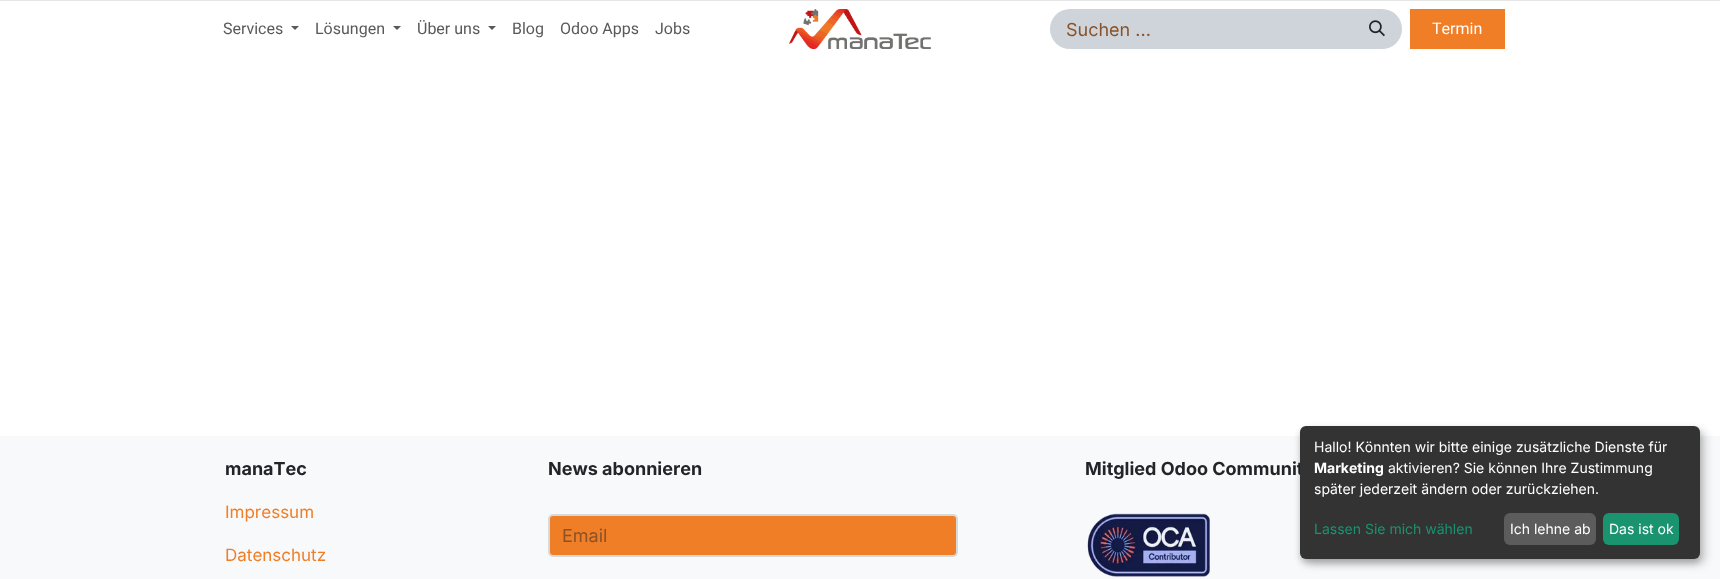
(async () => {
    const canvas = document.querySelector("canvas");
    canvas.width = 1720;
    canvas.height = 579;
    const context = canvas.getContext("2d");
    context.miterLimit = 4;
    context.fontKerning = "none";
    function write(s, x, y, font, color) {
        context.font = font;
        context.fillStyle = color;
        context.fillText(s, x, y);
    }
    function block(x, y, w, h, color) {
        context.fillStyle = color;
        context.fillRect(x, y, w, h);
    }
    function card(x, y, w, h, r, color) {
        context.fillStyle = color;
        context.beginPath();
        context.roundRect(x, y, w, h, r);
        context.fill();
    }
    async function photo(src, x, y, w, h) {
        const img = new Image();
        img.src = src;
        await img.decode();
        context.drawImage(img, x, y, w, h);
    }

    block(0, 0, 1720, 579, "rgb(255, 255, 255)");
    block(0, 0, 1720, 1, "rgb(230, 230, 230)");
    write("Services", 223, 34, "16px Roboto", "rgb(89, 89, 89)");
    context.beginPath();
    context.moveTo(291, 26);
    context.lineTo(299, 26);
    context.lineTo(295, 30);
    context.closePath();
    context.fill();
    write("Lösungen", 315, 34, "16px Roboto", "rgb(89, 89, 89)");
    context.beginPath();
    context.moveTo(393, 26);
    context.lineTo(401, 26);
    context.lineTo(397, 30);
    context.closePath();
    context.fill();
    write("Über uns", 417, 34, "16px Roboto", "rgb(89, 89, 89)");
    context.beginPath();
    context.moveTo(488, 26);
    context.lineTo(496, 26);
    context.lineTo(492, 30);
    context.closePath();
    context.fill();
    write("Blog", 512, 34, "16px Roboto", "rgb(89, 89, 89)");
    write("Odoo Apps", 560, 34, "16px Roboto", "rgb(89, 89, 89)");
    write("Jobs", 655, 34, "16px Roboto", "rgb(89, 89, 89)");
    await photo("media/1.png", 789, 9, 142, 40);
    context.fillStyle = "rgb(206, 212, 218)";
    context.beginPath();
    context.roundRect(1050, 9, 298, 40, [20, 0, 0, 20]);
    context.fill();
    write("Suchen ...", 1066, 36, "18px Inter", "rgb(137, 82, 40)");
    context.fillStyle = "rgb(206, 212, 218)";
    context.beginPath();
    context.roundRect(1346, 9, 56, 40, [0, 20, 20, 0]);
    context.fill();
    await photo("media/2.png", 1369, 20, 16, 17);
    block(1410, 9, 95, 40, "rgb(240, 126, 38)");
    write("Termin", 1432, 34, "16px Roboto", "rgb(255, 255, 255)");
    block(0, 436, 1720, 143, "rgb(248, 249, 250)");
    write("manaTec", 225, 475, "bold 18px Inter", "rgb(33, 37, 41)");
    write("Impressum", 225, 518, "17px Inter", "rgb(240, 126, 38)");
    write("Datenschutz", 225, 561, "17px Inter", "rgb(240, 126, 38)");
    write("News abonnieren", 548, 475, "bold 18px Inter", "rgb(33, 37, 41)");
    card(550, 516, 406, 39, 3, "rgb(240, 126, 38)");
    context.beginPath();
    context.roundRect(549, 515, 408, 41, 4);
    context.strokeStyle = "rgba(33, 37, 41, 0.15)";
    context.lineWidth = 2;
    context.stroke();
    write("Email", 562, 542, "18px Inter", "rgb(137, 82, 40)");
    write("Mitglied Odoo Communit", 1085, 475, "bold 18px Inter", "rgb(33, 37, 41)");
    await photo("media/3.png", 1087, 513, 123, 64);
    context.fillStyle = "rgba(0, 0, 0, 0.19)";
    context.filter = "blur(5px)";
    context.beginPath();
    context.roundRect(1305, 431, 400, 133, 6);
    context.fill();
    context.filter = "none";
    context.fillStyle = "rgba(0, 0, 0, 0.2)";
    context.filter = "blur(3px)";
    context.beginPath();
    context.roundRect(1300, 430, 400, 133, 6);
    context.fill();
    context.filter = "none";
    card(1300, 426, 400, 133, 6, "rgb(51, 51, 51)");
    write("Hallo! Könnten wir bitte einige zusätzliche Dienste für", 1314, 452, "14px Inter", "rgb(255, 255, 255)");
    write("Marketing", 1314, 473, "bold 14px Inter", "rgb(255, 255, 255)");
    write("aktivieren? Sie können Ihre Zustimmung", 1388, 473, "14px Inter", "rgb(255, 255, 255)");
    write("später jederzeit ändern oder zurückziehen.", 1314, 494, "14px Inter", "rgb(255, 255, 255)");
    write("Lassen Sie mich wählen", 1314, 534, "14px Inter", "rgb(26, 147, 111)");
    card(1504, 513, 92, 32, 6, "rgb(92, 92, 92)");
    write("Ich lehne ab", 1510, 534, "14px Inter", "rgb(255, 255, 255)");
    card(1603, 513, 76, 32, 6, "rgb(26, 147, 111)");
    write("Das ist ok", 1609, 534, "14px Inter", "rgb(255, 255, 255)");
})();
